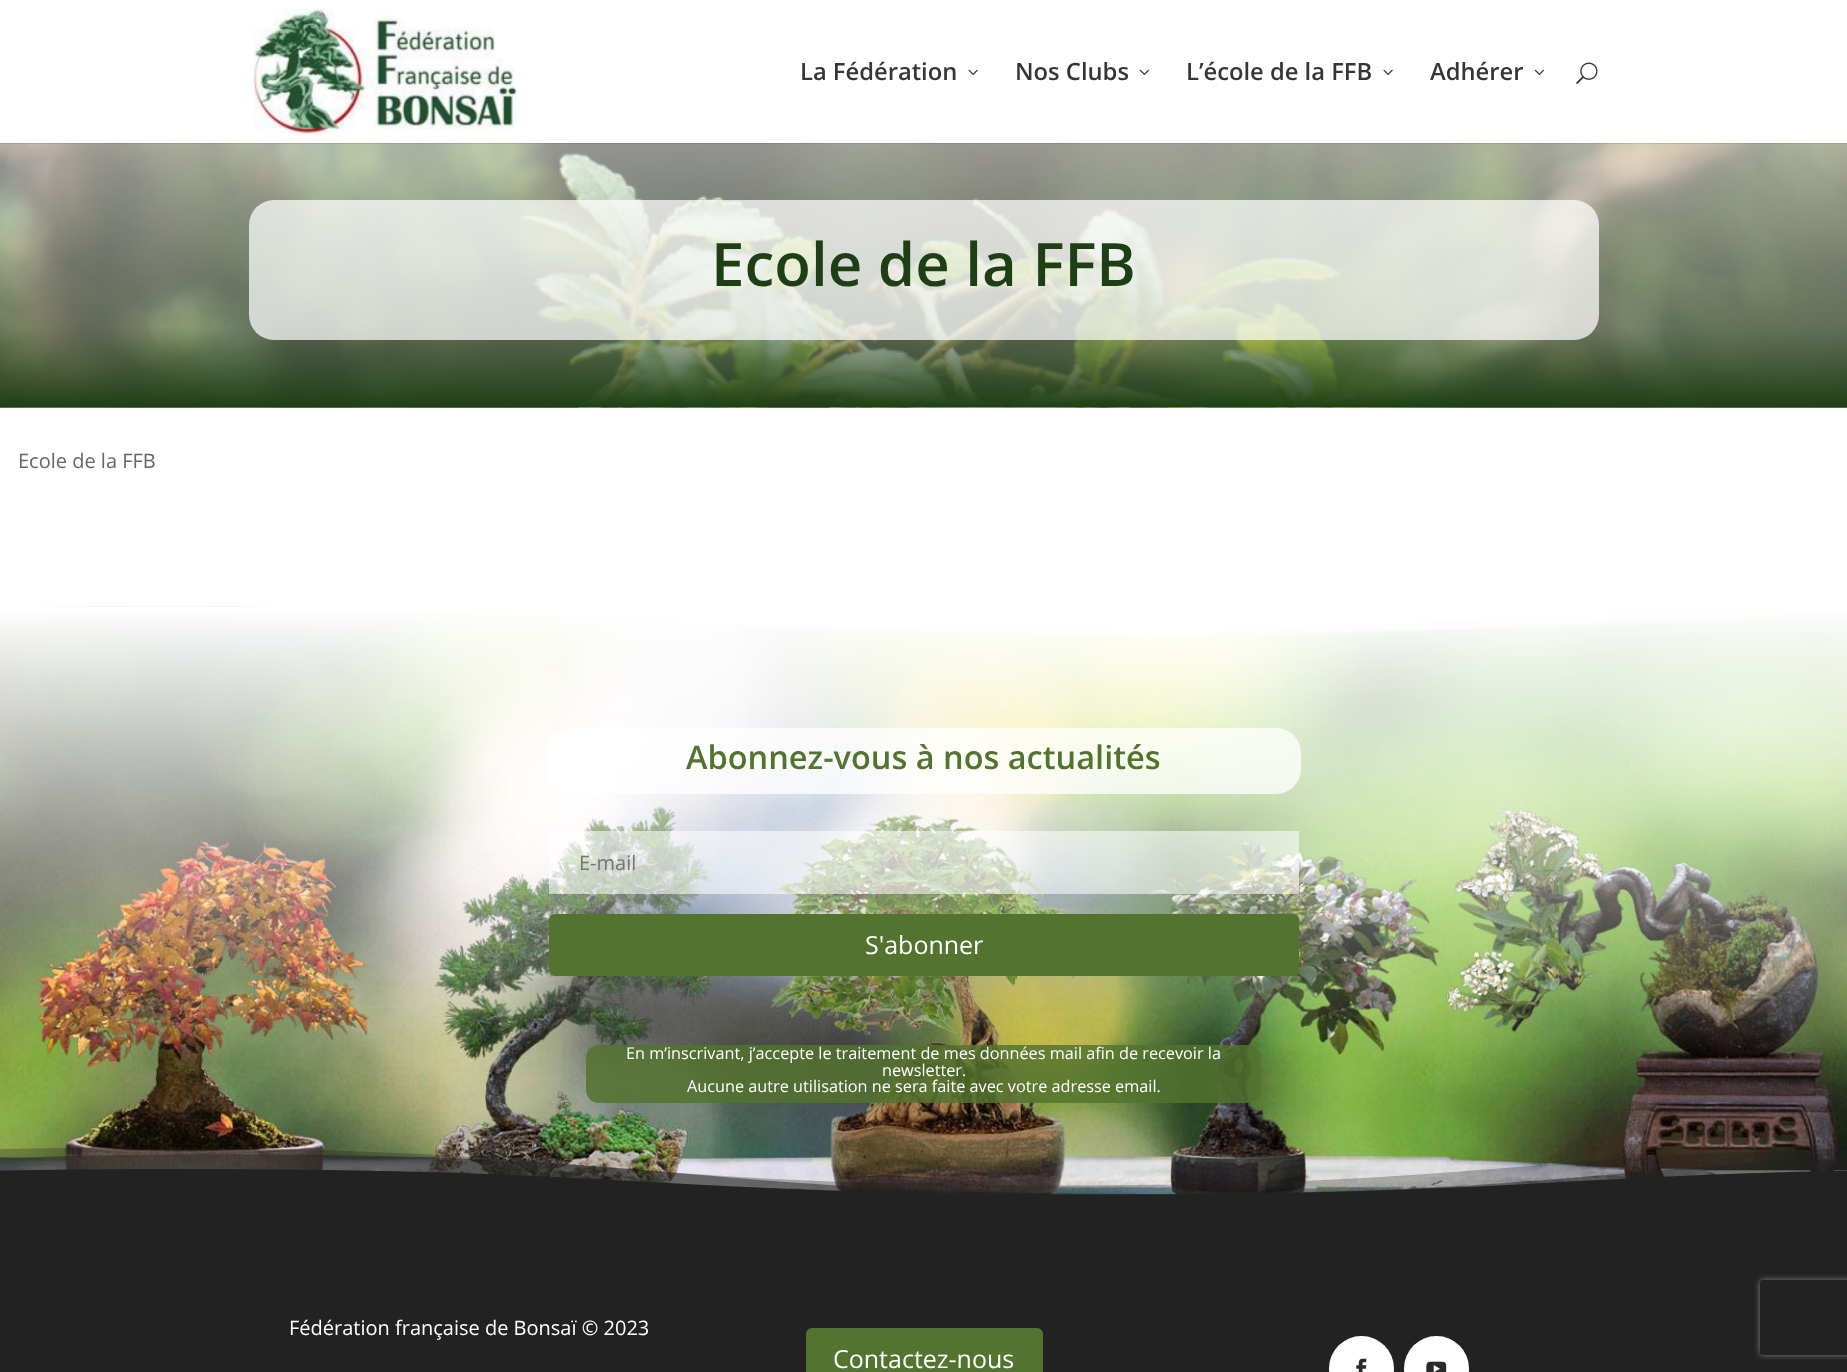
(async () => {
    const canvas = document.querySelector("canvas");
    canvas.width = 1847;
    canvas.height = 1372;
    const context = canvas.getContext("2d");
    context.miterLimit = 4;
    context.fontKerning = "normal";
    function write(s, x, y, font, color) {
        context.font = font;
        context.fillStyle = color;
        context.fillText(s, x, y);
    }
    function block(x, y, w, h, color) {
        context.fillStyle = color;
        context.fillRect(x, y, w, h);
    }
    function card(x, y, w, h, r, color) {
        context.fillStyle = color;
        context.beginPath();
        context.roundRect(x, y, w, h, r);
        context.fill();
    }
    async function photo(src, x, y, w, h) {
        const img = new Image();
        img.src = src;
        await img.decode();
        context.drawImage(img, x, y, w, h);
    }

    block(0, 0, 1847, 1372, "rgb(255, 255, 255)");
    await photo("media/5.png", 0, 143, 1847, 265);
    context.fillStyle = "rgba(0, 0, 0, 0.1)";
    context.beginPath();
    context.moveTo(0, 142);
    context.lineTo(0, 144);
    context.lineTo(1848, 144);
    context.lineTo(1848, 1);
    context.lineTo(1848, 142);
    context.closePath();
    context.fill();
    block(0, 142, 1847, 1, "rgb(255, 255, 255)");
    await photo("media/1.png", 253, 8, 264, 126);
    write("La Fédération", 800, 80, "600 23.75px Open Sans", "rgb(54, 54, 54)");
    await photo("media/2.png", 968, 69, 10, 6);
    write("Nos Clubs", 1015, 80, "600 23.75px Open Sans", "rgb(54, 54, 54)");
    await photo("media/3.png", 1139, 69, 10, 6);
    write("L’école de la FFB", 1186, 80, "600 23.75px Open Sans", "rgb(54, 54, 54)");
    await photo("media/2.png", 1383, 69, 10, 6);
    write("Adhérer", 1430, 80, "600 23.75px Open Sans", "rgb(54, 54, 54)");
    await photo("media/3.png", 1534, 69, 10, 6);
    await photo("media/4.png", 1576, 62, 22, 22);
    card(249, 200, 1350, 140, 25, "rgba(255, 255, 255, 0.72)");
    write("Ecole de la FFB", 711, 286, "600 60px Open Sans", "rgb(30, 63, 21)");
    write("Ecole de la FFB", 18, 468, "20px Open Sans", "rgb(102, 102, 102)");
    await photo("media/6.png", 0, 606, 1847, 589);
    context.fillStyle = "rgba(255, 255, 255, 0.3)";
    context.beginPath();
    context.moveTo(0, 620);
    context.bezierCurveTo(52, 620, 112, 619, 182, 619);
    context.bezierCurveTo(644, 619, 644, 634, 1106, 634);
    context.bezierCurveTo(1498, 634, 1557, 623, 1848, 620);
    context.lineTo(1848, 606);
    context.lineTo(0, 606);
    context.closePath();
    context.fill();
    context.fillStyle = "rgba(255, 255, 255, 0.5)";
    context.beginPath();
    context.moveTo(0, 613);
    context.bezierCurveTo(63, 611, 136, 610, 229, 610);
    context.bezierCurveTo(691, 610, 691, 634, 1152, 634);
    context.bezierCurveTo(1522, 634, 1596, 619, 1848, 613);
    context.lineTo(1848, 606);
    context.lineTo(0, 606);
    context.closePath();
    context.fill();
    context.fillStyle = "rgb(255, 255, 255)";
    context.beginPath();
    context.moveTo(0, 606);
    context.lineTo(0, 607);
    context.lineTo(136, 606);
    context.bezierCurveTo(598, 606, 598, 629, 1060, 629);
    context.bezierCurveTo(1471, 629, 1516, 611, 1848, 607);
    context.lineTo(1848, 606);
    context.closePath();
    context.fill();
    card(546, 728, 755, 66, 25, "rgba(255, 255, 255, 0.76)");
    write("Abonnez-vous à nos actualités", 686, 769, "600 32.5px Open Sans", "rgb(82, 116, 46)");
    block(549, 831, 750, 63, "rgba(255, 255, 255, 0.56)");
    write("E-mail", 579, 870, "20px Open Sans", "rgb(117, 117, 117)");
    context.fillStyle = "rgb(82, 116, 46)";
    context.beginPath();
    context.roundRect(550.5, 915.5, 747, 59, 4.5);
    context.fill();
    context.strokeStyle = "rgb(82, 116, 46)";
    context.lineWidth = 3;
    context.stroke();
    write("S'abonner", 865, 954, "25px Open Sans", "rgb(255, 255, 255)");
    card(586, 1045, 675, 58, 13, "rgba(82, 116, 46, 0.84)");
    write("En m’inscrivant, j’accepte le traitement de mes données mail afin de recevoir la", 626, 1059, "16.25px Open Sans", "rgb(255, 255, 255)");
    write("newsletter.", 882, 1076, "16.25px Open Sans", "rgb(255, 255, 255)");
    write("Aucune autre utilisation ne sera faite avec votre adresse email.", 687, 1092, "16.25px Open Sans", "rgb(255, 255, 255)");
    await photo("media/7.png", 0, 1148, 1847, 62);
    block(0, 1210, 1847, 162, "rgb(34, 34, 34)");
    write("Fédération française de Bonsaï © 2023", 289, 1335, "20px Open Sans", "rgb(255, 255, 255)");
    context.fillStyle = "rgb(82, 116, 46)";
    context.beginPath();
    context.roundRect(807.5, 1329.5, 234, 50, 4.5);
    context.fill();
    context.stroke();
    write("Contactez-nous", 833, 1368, "25px Open Sans", "rgb(255, 255, 255)");
    context.beginPath();
    context.arc(1361.5, 1368.5, 32.5, 0, Math.PI * 2);
    context.fill();
    await photo("media/8.png", 1356, 1358, 11, 14);
    context.beginPath();
    context.arc(1436.5, 1368.5, 32.5, 0, Math.PI * 2);
    context.fill();
    await photo("media/9.png", 1426, 1361, 21, 11);
    context.save();
    context.beginPath();
    context.moveTo(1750, 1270);
    context.lineTo(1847, 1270);
    context.lineTo(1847, 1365);
    context.lineTo(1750, 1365);
    context.closePath();
    context.moveTo(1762.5, 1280);
    context.lineTo(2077.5, 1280);
    context.bezierCurveTo(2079, 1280, 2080, 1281, 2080, 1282.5);
    context.lineTo(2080, 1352.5);
    context.bezierCurveTo(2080, 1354, 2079, 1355, 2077.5, 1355);
    context.lineTo(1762.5, 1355);
    context.bezierCurveTo(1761, 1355, 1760, 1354, 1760, 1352.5);
    context.lineTo(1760, 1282.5);
    context.bezierCurveTo(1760, 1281, 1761, 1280, 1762.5, 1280);
    context.closePath();
    context.clip("evenodd");
    context.fillStyle = "rgb(128, 128, 128)";
    context.filter = "blur(3px)";
    context.beginPath();
    context.roundRect(1760, 1280, 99, 75, 2.5);
    context.fill();
    context.filter = "none";
    context.restore();
})();
